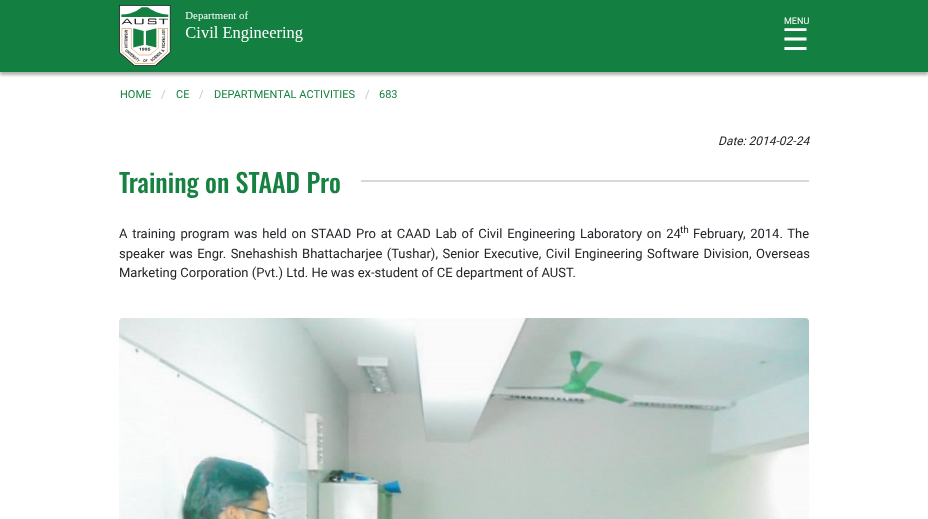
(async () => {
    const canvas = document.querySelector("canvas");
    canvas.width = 928;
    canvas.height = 519;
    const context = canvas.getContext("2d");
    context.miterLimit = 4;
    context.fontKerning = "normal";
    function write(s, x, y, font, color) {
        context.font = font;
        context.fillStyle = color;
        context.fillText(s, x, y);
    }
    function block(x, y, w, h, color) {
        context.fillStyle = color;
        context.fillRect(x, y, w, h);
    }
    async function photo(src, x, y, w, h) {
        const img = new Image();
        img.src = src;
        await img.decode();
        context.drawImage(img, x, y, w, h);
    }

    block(0, 0, 928, 519, "rgb(255, 255, 255)");
    context.fillStyle = "rgba(0, 0, 0, 0.3)";
    context.filter = "blur(1.5px)";
    context.beginPath();
    context.rect(0, 3, 928, 72);
    context.fill();
    context.filter = "none";
    block(0, 0, 928, 72, "rgb(19, 128, 65)");
    await photo("media/1.png", 119, 5, 184, 61);
    write("MENU", 784, 24, "9px Roboto", "rgb(255, 255, 255)");
    write("☰", 782, 50, "30px DejaVu Sans", "rgb(255, 255, 255)");
    write("HOME", 120, 98, "11px Roboto", "rgb(22, 129, 65)");
    write("/", 161, 98, "11px Roboto", "rgb(195, 195, 195)");
    write("CE", 176, 98, "11px Roboto", "rgb(22, 129, 65)");
    write("/", 199, 98, "11px Roboto", "rgb(195, 195, 195)");
    write("DEPARTMENTAL ACTIVITIES", 214, 98, "11px Roboto", "rgb(22, 129, 65)");
    write("/", 365, 98, "11px Roboto", "rgb(195, 195, 195)");
    write("683", 379, 98, "11px Roboto", "rgb(22, 129, 65)");
    write("Date: 2014-02-24", 718, 145, "italic 12px Roboto", "rgb(33, 37, 41)");
    write("Training on STAAD Pro", 119, 193, "500 26px Oswald", "rgb(22, 129, 65)");
    block(361, 180, 448, 2, "rgb(216, 216, 216)");
    context.wordSpacing = "1.5px";
    write("A training program was held on STAAD Pro at CAAD Lab of Civil Engineering Laboratory on 24", 119, 238, "13px Roboto", "rgb(33, 37, 41)");
    context.wordSpacing = "0px";
    write("th", 680, 233, "10px Roboto", "rgb(33, 37, 41)");
    context.wordSpacing = "1.5px";
    write("February, 2014. The", 693, 238, "13px Roboto", "rgb(33, 37, 41)");
    context.wordSpacing = "1.25px";
    write("speaker was Engr. Snehashish Bhattacharjee (Tushar), Senior Executive, Civil Engineering Software Division, Overseas", 119, 258, "13px Roboto", "rgb(33, 37, 41)");
    context.wordSpacing = "0px";
    write("Marketing Corporation (Pvt.) Ltd. He was ex-student of CE department of AUST.", 119, 277, "13px Roboto", "rgb(33, 37, 41)");
    await photo("media/2.png", 119, 318, 690, 201);
})();
